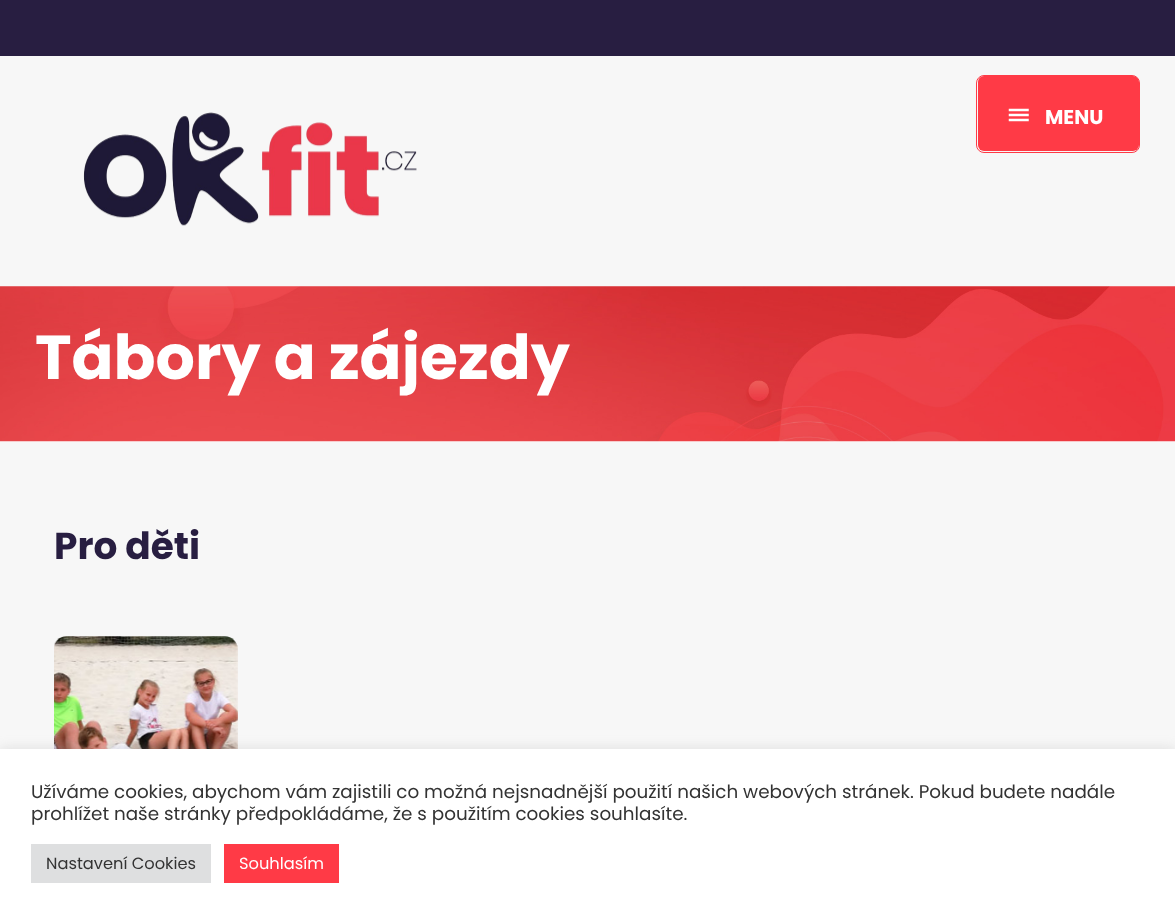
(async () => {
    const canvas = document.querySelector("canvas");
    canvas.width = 1175;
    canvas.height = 920;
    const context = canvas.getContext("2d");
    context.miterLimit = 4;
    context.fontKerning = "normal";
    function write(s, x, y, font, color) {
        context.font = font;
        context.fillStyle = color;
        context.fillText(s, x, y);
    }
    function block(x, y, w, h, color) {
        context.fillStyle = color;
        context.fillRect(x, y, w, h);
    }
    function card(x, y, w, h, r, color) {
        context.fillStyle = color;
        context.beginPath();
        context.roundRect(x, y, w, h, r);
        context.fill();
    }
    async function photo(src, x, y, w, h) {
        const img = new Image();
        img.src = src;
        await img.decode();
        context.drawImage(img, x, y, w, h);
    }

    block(0, 0, 1175, 920, "rgb(247, 247, 247)");
    block(0, 0, 1175, 56, "rgb(40, 30, 65)");
    await photo("media/1.png", 83, 112, 334, 114);
    card(978, 76, 161, 75, 6, "rgb(255, 58, 70)");
    context.beginPath();
    context.roundRect(976.5, 75.5, 163, 77, 7.5);
    context.strokeStyle = "rgb(255, 58, 70)";
    context.stroke();
    await photo("media/2.png", 1008, 108, 21, 14);
    write("MENU", 1045, 124, "bold 20px Poppins", "rgb(255, 255, 255)");
    await photo("media/3.png", 0, 286, 1175, 156);
    write("Tábory a zájezdy", 35, 379, "bold 61.9px Poppins", "rgb(255, 255, 255)");
    write("Pro děti", 54, 559, "bold 37.5px Poppins", "rgb(40, 30, 65)");
    await photo("media/4.png", 54, 636, 184, 113);
    context.fillStyle = "rgba(172, 171, 171, 0.3)";
    context.filter = "blur(6px)";
    context.beginPath();
    context.rect(0, 748, 1175, 171);
    context.fill();
    context.filter = "none";
    block(0, 749, 1175, 171, "rgb(255, 255, 255)");
    write("Užíváme cookies, abychom vám zajistili co možná nejsnadnější použití našich webových stránek. Pokud budete nadále", 31, 798, "18.33px Poppins", "rgb(51, 51, 51)");
    write("prohlížet naše stránky předpokládáme, že s použitím cookies souhlasíte.", 31, 820, "18.33px Poppins", "rgb(51, 51, 51)");
    block(31, 844, 180, 39, "rgb(222, 223, 224)");
    write("Nastavení Cookies", 46, 869, "16.25px Poppins", "rgb(51, 51, 51)");
    block(224, 844, 115, 39, "rgb(255, 58, 70)");
    write("Souhlasím", 239, 869, "16.25px Poppins", "rgb(255, 255, 255)");
})();
